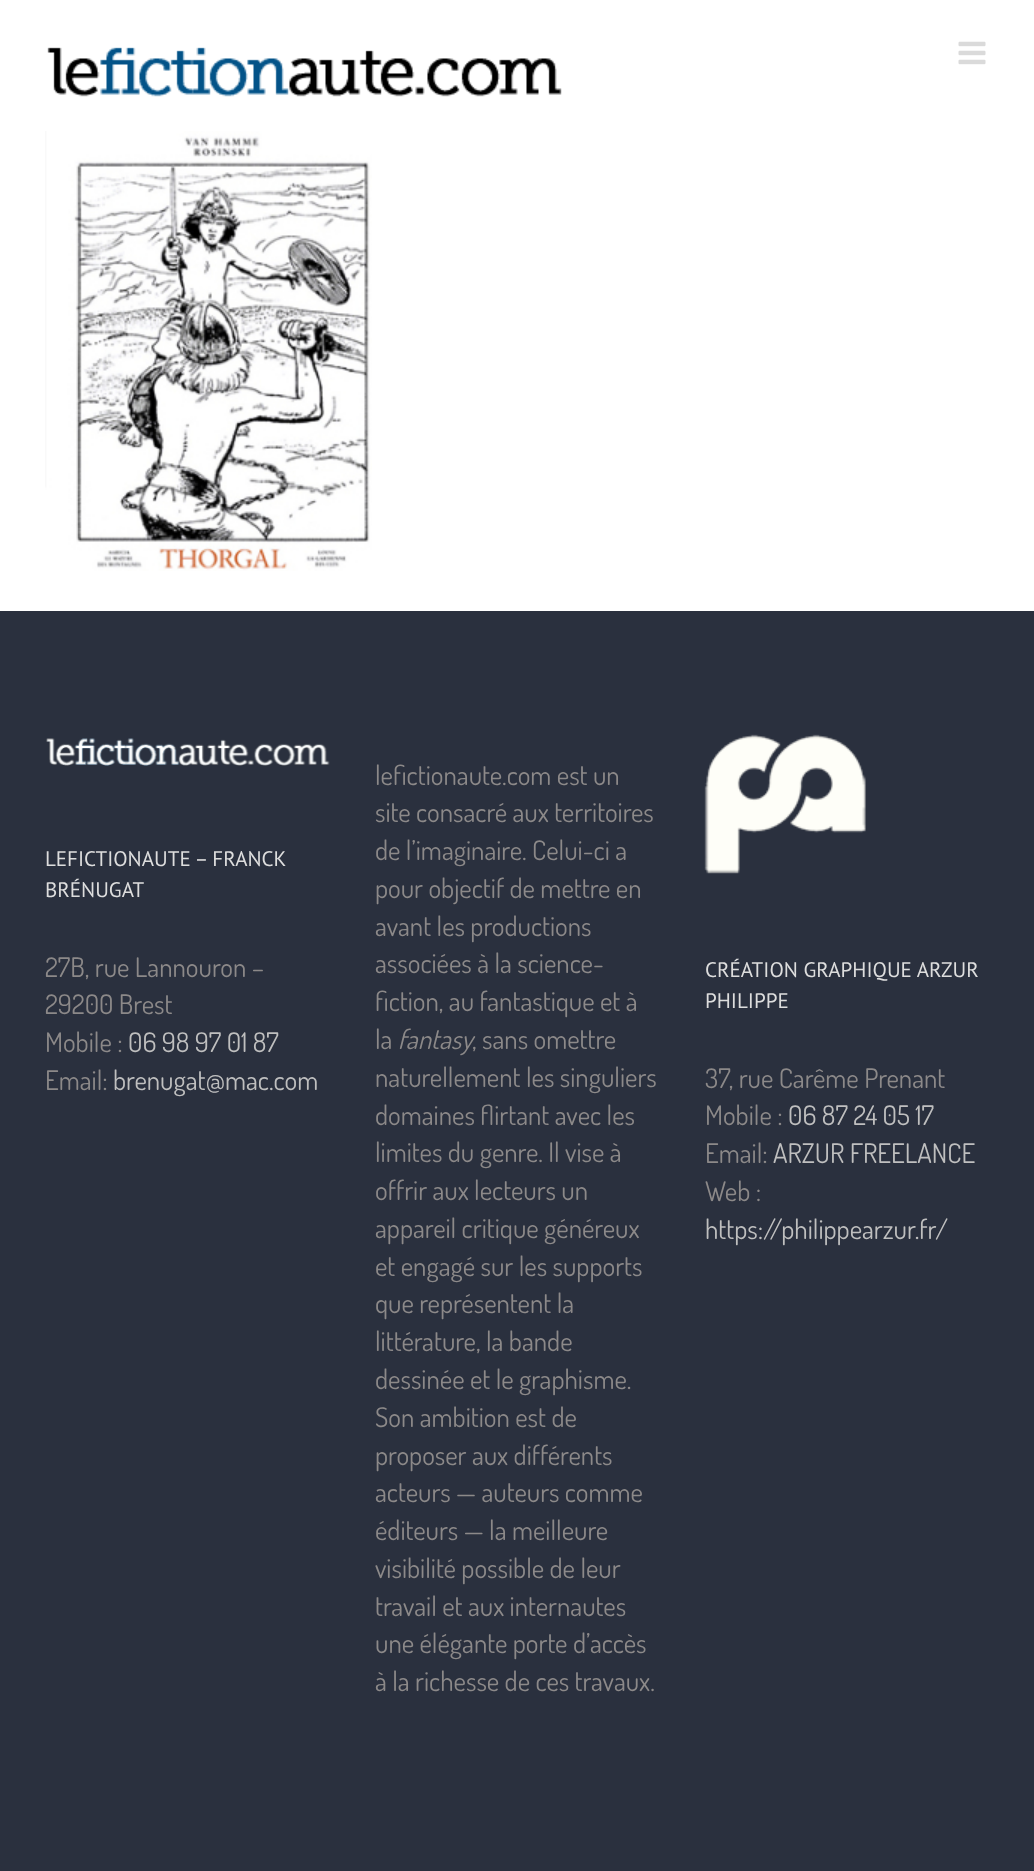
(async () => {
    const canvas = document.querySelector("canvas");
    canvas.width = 1034;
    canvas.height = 1871;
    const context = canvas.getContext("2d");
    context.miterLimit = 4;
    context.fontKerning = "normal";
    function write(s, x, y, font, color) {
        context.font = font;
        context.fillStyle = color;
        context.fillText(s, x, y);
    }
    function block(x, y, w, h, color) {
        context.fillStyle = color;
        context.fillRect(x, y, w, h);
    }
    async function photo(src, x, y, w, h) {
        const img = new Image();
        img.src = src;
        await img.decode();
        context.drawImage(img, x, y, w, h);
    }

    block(0, 0, 1034, 1871, "rgb(255, 255, 255)");
    await photo("media/1.png", 47, 47, 515, 50);
    await photo("media/2.png", 958, 41, 28, 24);
    await photo("media/3.png", 45, 131, 327, 440);
    block(0, 611, 1034, 1260, "rgb(42, 48, 62)");
    await photo("media/4.png", 46, 738, 284, 28);
    write("LEFICTIONAUTE – FRANCK", 45, 866, "21px PT Sans", "rgb(221, 221, 221)");
    write("BRÉNUGAT", 45, 897, "21px PT Sans", "rgb(221, 221, 221)");
    write("27B, rue Lannouron –", 45, 977, "27px Dosis", "rgb(140, 137, 137)");
    write("29200 Brest", 45, 1014, "27px Dosis", "rgb(140, 137, 137)");
    write("Mobile :", 45, 1052, "27px Dosis", "rgb(140, 137, 137)");
    write("06 98 97 01 87", 128, 1052, "27px Dosis", "rgb(191, 191, 191)");
    write("Email:", 45, 1090, "27px Dosis", "rgb(140, 137, 137)");
    write("brenugat@mac.com", 113, 1090, "27px Dosis", "rgb(191, 191, 191)");
    write("lefictionaute.com est un", 375, 785, "27px Dosis", "rgb(140, 137, 137)");
    write("site consacré aux territoires", 375, 822, "27px Dosis", "rgb(140, 137, 137)");
    write("de l’imaginaire. Celui-ci a", 375, 860, "27px Dosis", "rgb(140, 137, 137)");
    write("pour objectif de mettre en", 375, 898, "27px Dosis", "rgb(140, 137, 137)");
    write("avant les productions", 375, 936, "27px Dosis", "rgb(140, 137, 137)");
    write("associées à la science-", 375, 973, "27px Dosis", "rgb(140, 137, 137)");
    write("fiction, au fantastique et à", 375, 1011, "27px Dosis", "rgb(140, 137, 137)");
    write("la", 375, 1049, "27px Dosis", "rgb(140, 137, 137)");
    write("fantasy", 398, 1049, "italic 27px Dosis", "rgb(140, 137, 137)");
    write(", sans omettre", 472, 1049, "27px Dosis", "rgb(140, 137, 137)");
    write("naturellement les singuliers", 375, 1087, "27px Dosis", "rgb(140, 137, 137)");
    write("domaines flirtant avec les", 375, 1125, "27px Dosis", "rgb(140, 137, 137)");
    write("limites du genre. Il vise à", 375, 1162, "27px Dosis", "rgb(140, 137, 137)");
    write("offrir aux lecteurs un", 375, 1200, "27px Dosis", "rgb(140, 137, 137)");
    write("appareil critique généreux", 375, 1238, "27px Dosis", "rgb(140, 137, 137)");
    write("et engagé sur les supports", 375, 1276, "27px Dosis", "rgb(140, 137, 137)");
    write("que représentent la", 375, 1313, "27px Dosis", "rgb(140, 137, 137)");
    write("littérature, la bande", 375, 1351, "27px Dosis", "rgb(140, 137, 137)");
    write("dessinée et le graphisme.", 375, 1389, "27px Dosis", "rgb(140, 137, 137)");
    write("Son ambition est de", 375, 1427, "27px Dosis", "rgb(140, 137, 137)");
    write("proposer aux différents", 375, 1465, "27px Dosis", "rgb(140, 137, 137)");
    write("acteurs — auteurs comme", 375, 1502, "27px Dosis", "rgb(140, 137, 137)");
    write("éditeurs — la meilleure", 375, 1540, "27px Dosis", "rgb(140, 137, 137)");
    write("visibilité possible de leur", 375, 1578, "27px Dosis", "rgb(140, 137, 137)");
    write("travail et aux internautes", 375, 1616, "27px Dosis", "rgb(140, 137, 137)");
    write("une élégante porte d’accès", 375, 1653, "27px Dosis", "rgb(140, 137, 137)");
    write("à la richesse de ces travaux.", 375, 1691, "27px Dosis", "rgb(140, 137, 137)");
    await photo("media/5.png", 704, 734, 162, 140);
    write("CRÉATION GRAPHIQUE ARZUR", 705, 977, "21px PT Sans", "rgb(221, 221, 221)");
    write("PHILIPPE", 705, 1008, "21px PT Sans", "rgb(221, 221, 221)");
    write("37, rue Carême Prenant", 705, 1088, "27px Dosis", "rgb(140, 137, 137)");
    write("Mobile :", 705, 1125, "27px Dosis", "rgb(140, 137, 137)");
    write("06 87 24 05 17", 788, 1125, "27px Dosis", "rgb(191, 191, 191)");
    write("Email:", 705, 1163, "27px Dosis", "rgb(140, 137, 137)");
    write("ARZUR FREELANCE", 773, 1163, "27px Dosis", "rgb(191, 191, 191)");
    write("Web :", 705, 1201, "27px Dosis", "rgb(140, 137, 137)");
    write("https://philippearzur.fr/", 705, 1239, "27px Dosis", "rgb(191, 191, 191)");
})();
